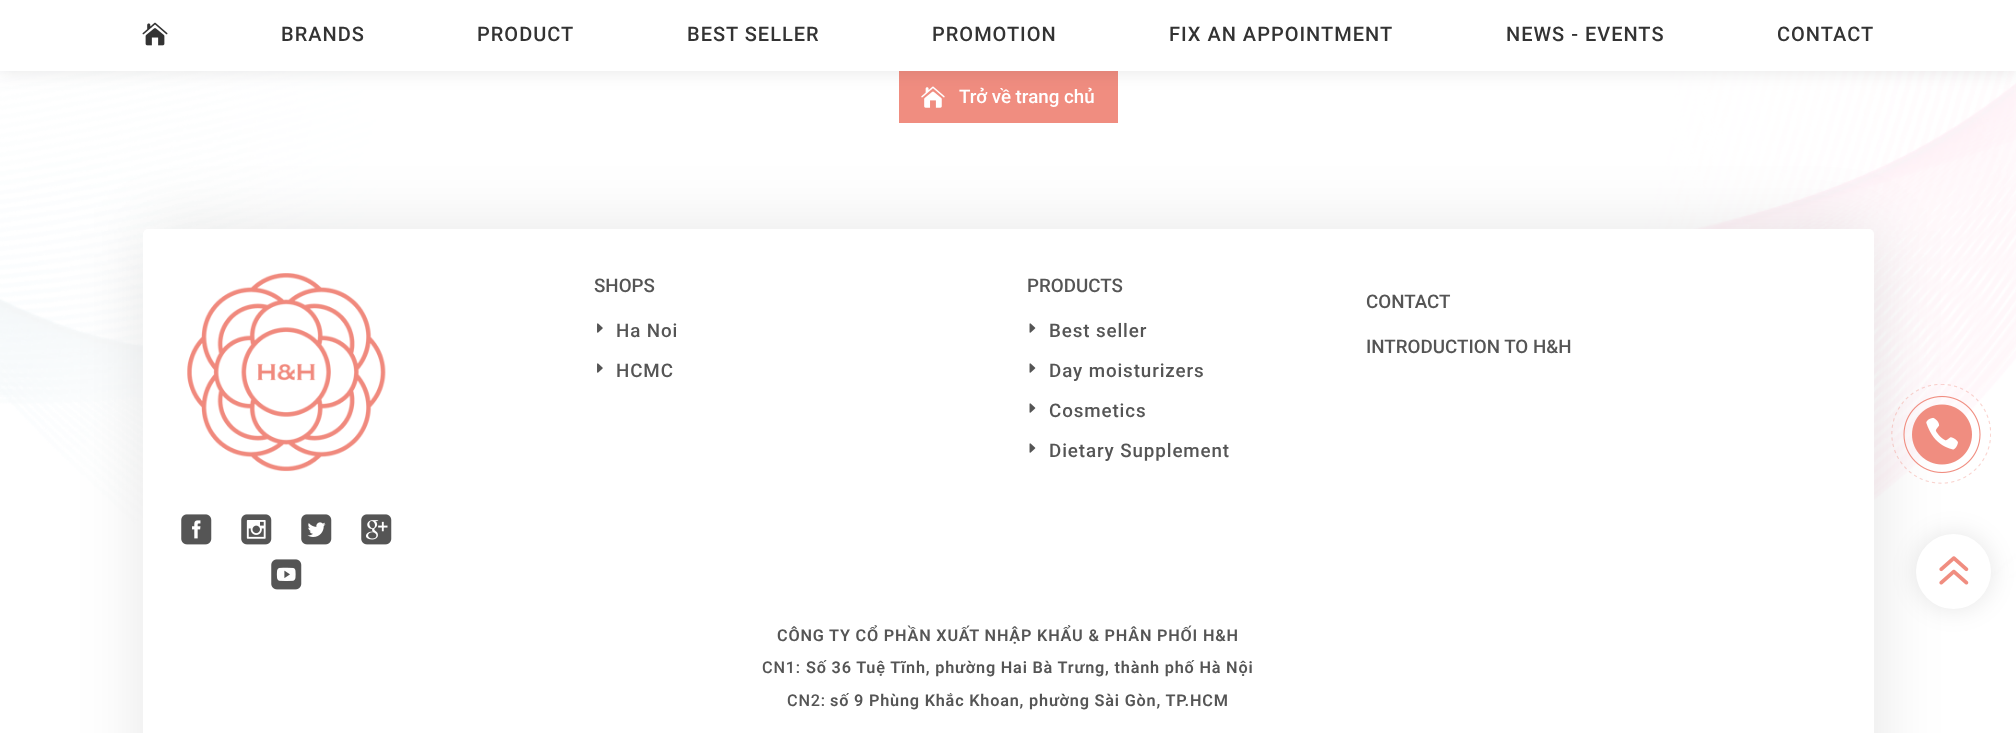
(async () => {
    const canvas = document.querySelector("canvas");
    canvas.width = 2016;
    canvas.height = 733;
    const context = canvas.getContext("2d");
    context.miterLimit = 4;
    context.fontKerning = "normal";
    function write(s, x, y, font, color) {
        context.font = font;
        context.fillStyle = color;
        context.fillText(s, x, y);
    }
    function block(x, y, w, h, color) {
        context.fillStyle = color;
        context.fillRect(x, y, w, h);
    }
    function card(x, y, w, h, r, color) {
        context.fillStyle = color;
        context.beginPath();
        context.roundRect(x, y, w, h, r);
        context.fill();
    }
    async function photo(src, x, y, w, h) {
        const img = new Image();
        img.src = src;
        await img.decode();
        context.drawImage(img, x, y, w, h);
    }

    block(0, 0, 2016, 733, "rgb(255, 255, 255)");
    await photo("media/2.png", 0, 71, 2016, 507);
    block(899, 71, 219, 52, "rgb(240, 141, 128)");
    await photo("media/3.png", 921, 86, 24, 22);
    context.fillStyle = "rgba(0, 0, 0, 0.1)";
    context.filter = "blur(9.5px)";
    context.beginPath();
    context.rect(0, 0, 2016, 71);
    context.fill();
    context.filter = "none";
    block(0, 0, 2016, 71, "rgb(255, 255, 255)");
    await photo("media/1.png", 142, 22, 26, 24);
    context.letterSpacing = "1px";
    write("BRANDS", 281, 41, "500 20px Roboto", "rgb(51, 51, 51)");
    write("PRODUCT", 477, 41, "500 20px Roboto", "rgb(51, 51, 51)");
    write("BEST SELLER", 687, 41, "500 20px Roboto", "rgb(51, 51, 51)");
    write("PROMOTION", 932, 41, "500 20px Roboto", "rgb(51, 51, 51)");
    write("FIX AN APPOINTMENT", 1169, 41, "500 20px Roboto", "rgb(51, 51, 51)");
    write("NEWS - EVENTS", 1506, 41, "500 20px Roboto", "rgb(51, 51, 51)");
    write("CONTACT", 1777, 41, "500 20px Roboto", "rgb(51, 51, 51)");
    context.letterSpacing = "0px";
    write("Trở về trang chủ", 959, 103, "500 18.75px Roboto", "rgb(255, 255, 255)");
    context.fillStyle = "rgba(0, 0, 0, 0.1)";
    context.filter = "blur(34px)";
    context.beginPath();
    context.roundRect(145, 231, 1731, 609, 5);
    context.fill();
    context.filter = "none";
    card(143, 229, 1731, 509, 5, "rgb(255, 255, 255)");
    await photo("media/4.png", 187, 273, 199, 199);
    await photo("media/5.png", 181, 514, 31, 31);
    await photo("media/6.png", 241, 514, 31, 31);
    await photo("media/7.png", 301, 514, 31, 31);
    await photo("media/8.png", 361, 514, 31, 31);
    await photo("media/9.png", 271, 559, 31, 31);
    write("SHOPS", 594, 292, "500 18.75px Roboto", "rgb(85, 85, 85)");
    await photo("media/10.png", 597, 323, 6, 10);
    context.letterSpacing = "0.9px";
    write("Ha Noi", 616, 337, "500 18.75px Roboto", "rgb(85, 85, 85)");
    await photo("media/10.png", 597, 363, 6, 10);
    write("HCMC", 616, 377, "500 18.75px Roboto", "rgb(85, 85, 85)");
    context.letterSpacing = "0px";
    write("PRODUCTS", 1027, 292, "500 18.75px Roboto", "rgb(85, 85, 85)");
    await photo("media/11.png", 1029, 323, 7, 10);
    context.letterSpacing = "0.9px";
    write("Best seller", 1049, 337, "500 18.75px Roboto", "rgb(85, 85, 85)");
    await photo("media/11.png", 1029, 363, 7, 10);
    write("Day moisturizers", 1049, 377, "500 18.75px Roboto", "rgb(85, 85, 85)");
    await photo("media/11.png", 1029, 403, 7, 10);
    write("Cosmetics", 1049, 417, "500 18.75px Roboto", "rgb(85, 85, 85)");
    await photo("media/11.png", 1029, 443, 7, 10);
    write("Dietary Supplement", 1049, 457, "500 18.75px Roboto", "rgb(85, 85, 85)");
    context.letterSpacing = "0px";
    write("CONTACT", 1366, 308, "500 18.75px Roboto", "rgb(85, 85, 85)");
    write("INTRODUCTION TO H&H", 1366, 353, "500 18.75px Roboto", "rgb(85, 85, 85)");
    context.letterSpacing = "0.8px";
    write("CÔNG TY CỔ PHẦN XUẤT NHẬP KHẨU & PHÂN PHỐI H&H", 777, 641, "600 16.25px Roboto", "rgb(85, 85, 85)");
    write("CN1:", 762, 673, "500 16.25px Roboto", "rgb(85, 85, 85)");
    write("Số 36 Tuệ Tĩnh, phường Hai Bà Trưng, thành phố Hà Nội", 806, 673, "600 16.25px Roboto", "rgb(85, 85, 85)");
    write("CN2:", 787, 706, "500 16.25px Roboto", "rgb(85, 85, 85)");
    write("số 9 Phùng Khắc Khoan, phường Sài Gòn, TP.HCM", 830, 706, "600 16.25px Roboto", "rgb(85, 85, 85)");
    await photo("media/12.png", 1891, 384, 100, 100);
    context.fillStyle = "rgba(0, 0, 0, 0.1)";
    context.filter = "blur(13px)";
    context.beginPath();
    context.roundRect(1916, 534, 75, 75, 37.5);
    context.fill();
    context.filter = "none";
    context.fillStyle = "rgb(255, 255, 255)";
    context.beginPath();
    context.arc(1953.5, 571.5, 37.5, 0, Math.PI * 2);
    context.fill();
    await photo("media/13.png", 1939, 556, 30, 29);
})();
